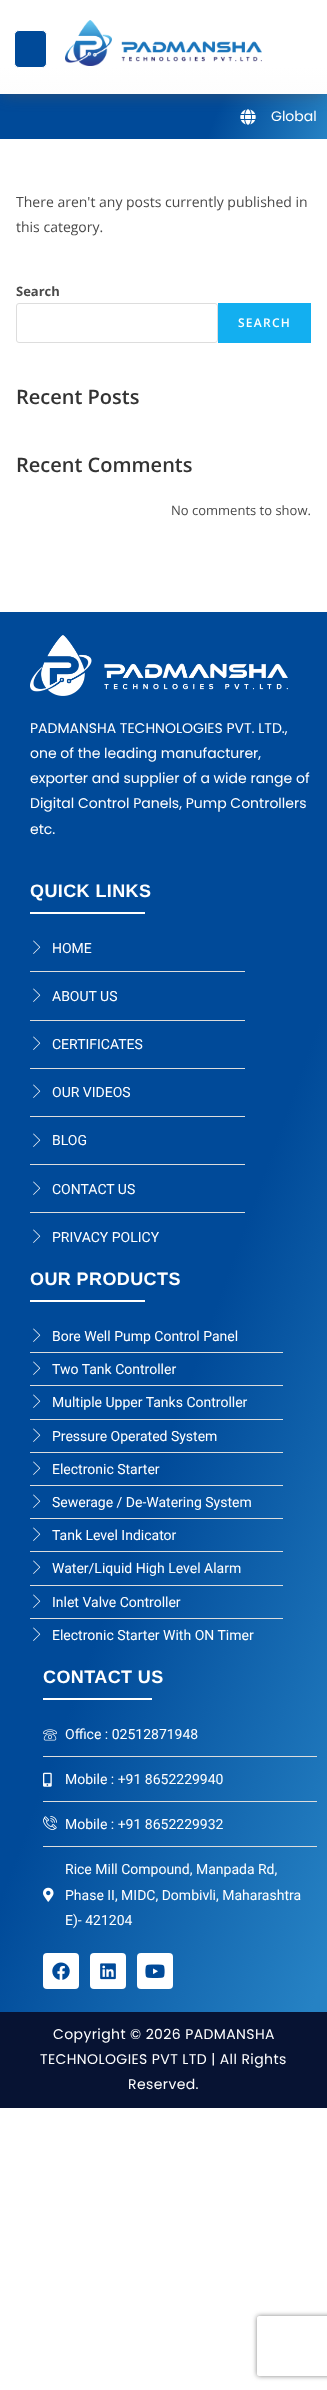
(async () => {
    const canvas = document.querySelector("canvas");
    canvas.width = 327;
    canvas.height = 2390;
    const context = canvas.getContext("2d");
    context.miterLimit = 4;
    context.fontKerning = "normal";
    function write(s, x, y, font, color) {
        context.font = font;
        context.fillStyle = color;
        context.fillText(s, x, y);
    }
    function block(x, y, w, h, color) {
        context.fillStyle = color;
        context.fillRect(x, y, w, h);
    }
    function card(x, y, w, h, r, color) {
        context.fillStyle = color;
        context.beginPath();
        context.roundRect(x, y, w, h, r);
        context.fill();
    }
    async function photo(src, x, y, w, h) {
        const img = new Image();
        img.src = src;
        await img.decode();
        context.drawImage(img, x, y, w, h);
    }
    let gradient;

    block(0, 0, 327, 2390, "rgb(255, 255, 255)");
    gradient = context.createLinearGradient(12, 61, 315, 172);
    gradient.addColorStop(0.65, "rgb(0, 74, 153)");
    gradient.addColorStop(1, "rgb(38, 130, 196)");
    context.fillStyle = gradient;
    context.fillRect(0, 94, 327, 45);
    await photo("media/2.png", 240, 109, 16, 16);
    context.fillStyle = "rgba(86, 86, 86, 0.5)";
    context.filter = "blur(7.5px)";
    context.beginPath();
    context.rect(3, 7, 321, 88);
    context.fill();
    context.filter = "none";
    gradient = context.createLinearGradient(164, 0, 164, 94);
    gradient.addColorStop(0.7, "rgb(255, 255, 255)");
    gradient.addColorStop(1, "rgb(253, 253, 253)");
    context.fillStyle = gradient;
    context.fillRect(0, 0, 327, 94);
    context.fillStyle = "rgb(0, 74, 153)";
    context.beginPath();
    context.roundRect(14.5, 30.5, 32, 37, 4.5);
    context.fill();
    context.strokeStyle = "rgb(255, 255, 255)";
    context.stroke();
    await photo("media/1.png", 65, 20, 197, 46);
    write("Global", 271, 121, "14px Poppins", "rgb(255, 255, 255)");
    write("There aren't any posts currently published in", 16, 207, "14px Open Sans", "rgb(74, 74, 74)");
    write("this category.", 16, 232, "14px Open Sans", "rgb(74, 74, 74)");
    write("Search", 16, 296, "bold 13px Open Sans", "rgb(74, 74, 74)");
    context.beginPath();
    context.roundRect(16.5, 303.5, 201, 39, 2.5);
    context.strokeStyle = "rgb(221, 221, 221)";
    context.stroke();
    block(218, 303, 93, 40, "rgb(19, 175, 240)");
    context.letterSpacing = "1.25px";
    write("SEARCH", 238, 327, "600 12px Open Sans", "rgb(255, 255, 255)");
    context.letterSpacing = "0px";
    write("Recent Posts", 16, 404, "600 20px Open Sans", "rgb(51, 51, 51)");
    write("Recent Comments", 16, 472, "600 20px Open Sans", "rgb(51, 51, 51)");
    write("No comments to show.", 171, 515, "13px Open Sans", "rgb(74, 74, 74)");
    gradient = context.createLinearGradient(-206, 1178, 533, 1446);
    gradient.addColorStop(0.56, "rgb(0, 74, 153)");
    gradient.addColorStop(0.98, "rgb(38, 130, 196)");
    context.fillStyle = gradient;
    context.fillRect(0, 612, 327, 1400);
    await photo("media/3.png", 30, 635, 258, 61);
    write("PADMANSHA TECHNOLOGIES PVT. LTD.,", 30, 733, "14px Poppins", "rgb(255, 255, 255)");
    write("one of the leading manufacturer,", 30, 758, "14px Poppins", "rgb(255, 255, 255)");
    write("exporter and supplier of a wide range of", 30, 783, "14px Poppins", "rgb(255, 255, 255)");
    write("Digital Control Panels, Pump Controllers", 30, 808, "14px Poppins", "rgb(255, 255, 255)");
    write("etc.", 30, 834, "14px Poppins", "rgb(255, 255, 255)");
    context.letterSpacing = "0.4px";
    write("QUICK LINKS", 30, 897, "bold 18px Liberation Sans", "rgb(255, 255, 255)");
    block(30, 912, 115, 2, "rgb(255, 255, 255)");
    await photo("media/4.png", 33, 940, 8, 14);
    context.letterSpacing = "0px";
    write("HOME", 52, 953, "14px Roboto", "rgb(255, 255, 255)");
    block(30, 971, 215, 1, "rgb(221, 221, 221)");
    await photo("media/4.png", 33, 988, 8, 14);
    write("ABOUT US", 52, 1001, "14px Roboto", "rgb(255, 255, 255)");
    block(30, 1020, 215, 1, "rgb(221, 221, 221)");
    await photo("media/4.png", 33, 1036, 8, 14);
    write("CERTIFICATES", 52, 1049, "14px Roboto", "rgb(255, 255, 255)");
    block(30, 1068, 215, 1, "rgb(221, 221, 221)");
    await photo("media/4.png", 33, 1084, 8, 14);
    write("OUR VIDEOS", 52, 1097, "14px Roboto", "rgb(255, 255, 255)");
    block(30, 1116, 215, 1, "rgb(221, 221, 221)");
    await photo("media/4.png", 33, 1133, 8, 14);
    write("BLOG", 52, 1145, "14px Roboto", "rgb(255, 255, 255)");
    block(30, 1164, 215, 1, "rgb(221, 221, 221)");
    await photo("media/4.png", 33, 1181, 8, 14);
    write("CONTACT US", 52, 1194, "14px Roboto", "rgb(255, 255, 255)");
    block(30, 1212, 215, 1, "rgb(221, 221, 221)");
    await photo("media/4.png", 33, 1229, 8, 14);
    write("PRIVACY POLICY", 52, 1242, "14px Roboto", "rgb(255, 255, 255)");
    context.letterSpacing = "0.4px";
    write("OUR PRODUCTS", 30, 1285, "bold 18px Liberation Sans", "rgb(255, 255, 255)");
    block(30, 1300, 115, 2, "rgb(255, 255, 255)");
    await photo("media/4.png", 33, 1328, 8, 14);
    context.letterSpacing = "0px";
    write("Bore Well Pump Control Panel", 52, 1341, "14px Roboto", "rgb(255, 255, 255)");
    block(30, 1352, 253, 1, "rgb(221, 221, 221)");
    await photo("media/4.png", 33, 1361, 8, 14);
    write("Two Tank Controller", 52, 1374, "14px Roboto", "rgb(255, 255, 255)");
    block(30, 1385, 253, 1, "rgb(221, 221, 221)");
    await photo("media/4.png", 33, 1394, 8, 14);
    write("Multiple Upper Tanks Controller", 52, 1407, "14px Roboto", "rgb(255, 255, 255)");
    block(30, 1419, 253, 1, "rgb(221, 221, 221)");
    await photo("media/4.png", 33, 1428, 8, 14);
    write("Pressure Operated System", 52, 1441, "14px Roboto", "rgb(255, 255, 255)");
    block(30, 1452, 253, 1, "rgb(221, 221, 221)");
    await photo("media/4.png", 33, 1461, 8, 14);
    write("Electronic Starter", 52, 1474, "14px Roboto", "rgb(255, 255, 255)");
    block(30, 1485, 253, 1, "rgb(221, 221, 221)");
    await photo("media/4.png", 33, 1494, 8, 14);
    write("Sewerage / De-Watering System", 52, 1507, "14px Roboto", "rgb(255, 255, 255)");
    block(30, 1518, 253, 1, "rgb(221, 221, 221)");
    await photo("media/4.png", 33, 1527, 8, 14);
    write("Tank Level Indicator", 52, 1540, "14px Roboto", "rgb(255, 255, 255)");
    block(30, 1551, 253, 1, "rgb(221, 221, 221)");
    await photo("media/4.png", 33, 1560, 8, 14);
    write("Water/Liquid High Level Alarm", 52, 1573, "14px Roboto", "rgb(255, 255, 255)");
    block(30, 1585, 253, 1, "rgb(221, 221, 221)");
    await photo("media/4.png", 33, 1594, 8, 14);
    write("Inlet Valve Controller", 52, 1607, "14px Roboto", "rgb(255, 255, 255)");
    block(30, 1618, 253, 1, "rgb(221, 221, 221)");
    await photo("media/4.png", 33, 1627, 8, 14);
    write("Electronic Starter With ON Timer", 52, 1640, "14px Roboto", "rgb(255, 255, 255)");
    context.letterSpacing = "0.4px";
    write("CONTACT US", 43, 1683, "bold 18px Liberation Sans", "rgb(255, 255, 255)");
    block(43, 1698, 109, 2, "rgb(255, 255, 255)");
    await photo("media/5.png", 43, 1729, 14, 12);
    context.letterSpacing = "0px";
    write("Office : 02512871948", 65, 1739, "14px Roboto", "rgb(255, 255, 255)");
    block(43, 1756, 274, 1, "rgb(221, 221, 221)");
    await photo("media/6.png", 43, 1772, 9, 15);
    write("Mobile : +91 8652229940", 65, 1784, "14px Roboto", "rgb(255, 255, 255)");
    block(43, 1801, 274, 1, "rgb(221, 221, 221)");
    await photo("media/7.png", 43, 1816, 14, 15);
    write("Mobile : +91 8652229932", 65, 1829, "14px Roboto", "rgb(255, 255, 255)");
    block(43, 1846, 274, 1, "rgb(221, 221, 221)");
    await photo("media/8.png", 43, 1887, 11, 15);
    write("Rice Mill Compound, Manpada Rd,", 65, 1874, "14px Roboto", "rgb(255, 255, 255)");
    write("Phase II, MIDC, Dombivli, Maharashtra", 65, 1900, "14px Roboto", "rgb(255, 255, 255)");
    write("E)- 421204", 65, 1925, "14px Roboto", "rgb(255, 255, 255)");
    card(43, 1953, 36, 36, 4, "rgb(255, 255, 255)");
    await photo("media/9.png", 52, 1962, 18, 18);
    card(90, 1953, 36, 36, 4, "rgb(255, 255, 255)");
    await photo("media/10.png", 100, 1963, 16, 17);
    card(137, 1953, 36, 36, 4, "rgb(255, 255, 255)");
    await photo("media/11.png", 145, 1964, 20, 14);
    block(0, 2012, 327, 96, "rgb(7, 19, 51)");
    context.letterSpacing = "0.4px";
    write("Copyright © 2026 PADMANSHA", 53, 2039, "14px Poppins", "rgb(255, 255, 255)");
    write("TECHNOLOGIES PVT LTD | All Rights", 40, 2064, "14px Poppins", "rgb(255, 255, 255)");
    write("Reserved.", 128, 2089, "14px Poppins", "rgb(255, 255, 255)");
    context.save();
    context.beginPath();
    context.moveTo(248, 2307);
    context.lineTo(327, 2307);
    context.lineTo(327, 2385);
    context.lineTo(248, 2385);
    context.closePath();
    context.moveTo(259, 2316);
    context.lineTo(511, 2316);
    context.bezierCurveTo(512, 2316, 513, 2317, 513, 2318);
    context.lineTo(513, 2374);
    context.bezierCurveTo(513, 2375, 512, 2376, 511, 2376);
    context.lineTo(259, 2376);
    context.bezierCurveTo(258, 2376, 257, 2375, 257, 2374);
    context.lineTo(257, 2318);
    context.bezierCurveTo(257, 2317, 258, 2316, 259, 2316);
    context.closePath();
    context.clip("evenodd");
    context.fillStyle = "rgb(128, 128, 128)";
    context.filter = "blur(2.5px)";
    context.beginPath();
    context.roundRect(257, 2316, 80, 60, 2);
    context.fill();
    context.filter = "none";
    context.restore();
})();
